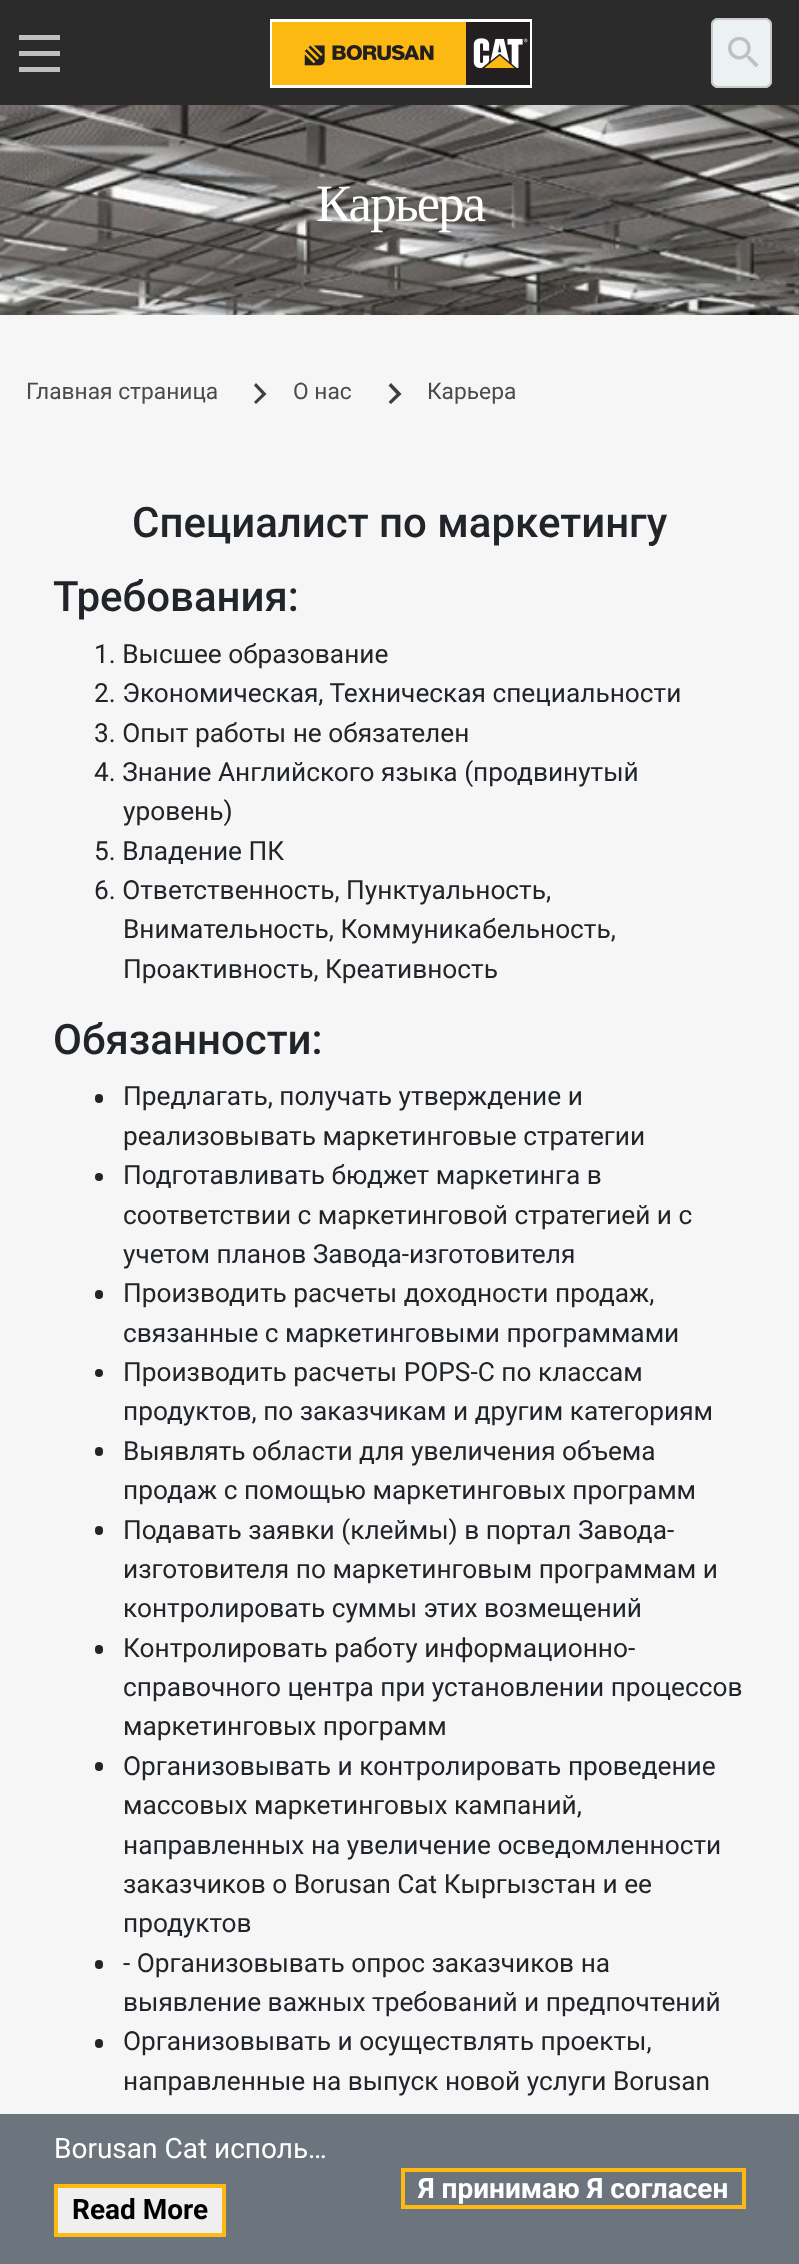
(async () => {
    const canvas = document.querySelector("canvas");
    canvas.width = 799;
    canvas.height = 2264;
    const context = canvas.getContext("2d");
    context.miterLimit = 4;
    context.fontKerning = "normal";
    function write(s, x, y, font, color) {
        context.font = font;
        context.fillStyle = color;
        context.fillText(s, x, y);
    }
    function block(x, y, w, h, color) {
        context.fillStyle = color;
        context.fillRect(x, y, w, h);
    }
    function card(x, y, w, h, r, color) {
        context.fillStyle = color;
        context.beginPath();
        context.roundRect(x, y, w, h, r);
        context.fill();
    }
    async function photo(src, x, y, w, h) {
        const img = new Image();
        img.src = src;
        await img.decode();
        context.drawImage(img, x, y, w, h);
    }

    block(0, 0, 799, 2264, "rgb(246, 246, 246)");
    block(0, 0, 799, 105, "rgb(43, 43, 43)");
    block(19, 35, 41, 5, "rgb(192, 192, 192)");
    block(19, 51, 41, 5, "rgb(192, 192, 192)");
    block(19, 67, 41, 5, "rgb(192, 192, 192)");
    await photo("media/1.png", 270, 19, 262, 69);
    card(711, 18, 61, 70, 7, "rgb(236, 242, 244)");
    await photo("media/2.png", 728, 37, 31, 30);
    context.beginPath();
    context.roundRect(712, 19, 59, 68, 6);
    context.strokeStyle = "rgb(202, 202, 202)";
    context.lineWidth = 2;
    context.stroke();
    await photo("media/3.png", 0, 105, 799, 210);
    context.letterSpacing = "-1.75px";
    write("Карьера", 316, 221, "52.5px Liberation Serif", "rgb(255, 255, 255)");
    context.letterSpacing = "0px";
    write("Главная страница", 26, 399, "22.75px Roboto", "rgb(74, 74, 74)");
    context.fillStyle = "rgb(62, 62, 62)";
    context.beginPath();
    context.moveTo(254, 385.5);
    context.lineTo(262, 394);
    context.lineTo(254, 402);
    context.lineTo(256, 404);
    context.lineTo(266.5, 394);
    context.lineTo(256, 383);
    context.closePath();
    context.fill("evenodd");
    write("О нас", 293, 399, "22.75px Roboto", "rgb(74, 74, 74)");
    context.fillStyle = "rgb(62, 62, 62)";
    context.beginPath();
    context.moveTo(388.5, 385.5);
    context.lineTo(396.5, 394);
    context.lineTo(388.5, 402);
    context.lineTo(391, 404);
    context.lineTo(401.5, 394);
    context.lineTo(391, 383);
    context.closePath();
    context.fill("evenodd");
    write("Карьера", 427, 399, "22.75px Roboto", "rgb(74, 74, 74)");
    write("Специалист по маркетингу", 132, 537, "500 42px Roboto", "rgb(33, 37, 41)");
    write("Требования:", 53, 611, "500 42px Roboto", "rgb(33, 37, 41)");
    write("1. Высшее образование", 94, 663, "26.25px Roboto", "rgb(33, 37, 41)");
    write("2. Экономическая, Техническая специальности", 94, 702, "26.25px Roboto", "rgb(33, 37, 41)");
    write("3. Опыт работы не обязателен", 94, 742, "26.25px Roboto", "rgb(33, 37, 41)");
    write("4. Знание Английского языка (продвинутый", 94, 781, "26.25px Roboto", "rgb(33, 37, 41)");
    write("уровень)", 123, 820, "26.25px Roboto", "rgb(33, 37, 41)");
    write("5. Владение ПК", 94, 860, "26.25px Roboto", "rgb(33, 37, 41)");
    write("6. Ответственность, Пунктуальность,", 94, 899, "26.25px Roboto", "rgb(33, 37, 41)");
    write("Внимательность, Коммуникабельность,", 123, 938, "26.25px Roboto", "rgb(33, 37, 41)");
    write("Проактивность, Креативность", 123, 978, "26.25px Roboto", "rgb(33, 37, 41)");
    write("Обязанности:", 53, 1054, "500 42px Roboto", "rgb(33, 37, 41)");
    card(95, 1094, 8, 9, 4, "rgb(33, 37, 41)");
    write("Предлагать, получать утверждение и", 123, 1105, "26.25px Roboto", "rgb(33, 37, 41)");
    write("реализовывать маркетинговые стратегии", 123, 1145, "26.25px Roboto", "rgb(33, 37, 41)");
    context.beginPath();
    context.arc(99, 1177, 4, 0, Math.PI * 2);
    context.fill();
    write("Подготавливать бюджет маркетинга в", 123, 1184, "26.25px Roboto", "rgb(33, 37, 41)");
    write("соответствии с маркетинговой стратегией и с", 123, 1224, "26.25px Roboto", "rgb(33, 37, 41)");
    write("учетом планов Завода-изготовителя", 123, 1263, "26.25px Roboto", "rgb(33, 37, 41)");
    card(95, 1290, 8, 9, 4, "rgb(33, 37, 41)");
    write("Производить расчеты доходности продаж,", 123, 1302, "26.25px Roboto", "rgb(33, 37, 41)");
    write("связанные с маркетинговыми программами", 123, 1342, "26.25px Roboto", "rgb(33, 37, 41)");
    context.beginPath();
    context.arc(99, 1373, 4, 0, Math.PI * 2);
    context.fill();
    write("Производить расчеты POPS-С по классам", 123, 1381, "26.25px Roboto", "rgb(33, 37, 41)");
    write("продуктов, по заказчикам и другим категориям", 123, 1420, "26.25px Roboto", "rgb(33, 37, 41)");
    card(95, 1447, 8, 9, 4, "rgb(33, 37, 41)");
    write("Выявлять области для увеличения объема", 123, 1460, "26.25px Roboto", "rgb(33, 37, 41)");
    write("продаж с помощью маркетинговых программ", 123, 1499, "26.25px Roboto", "rgb(33, 37, 41)");
    card(95, 1526, 8, 9, 4, "rgb(33, 37, 41)");
    write("Подавать заявки (клеймы) в портал Завода-", 123, 1539, "26.25px Roboto", "rgb(33, 37, 41)");
    write("изготовителя по маркетинговым программам и", 123, 1578, "26.25px Roboto", "rgb(33, 37, 41)");
    write("контролировать суммы этих возмещений", 123, 1617, "26.25px Roboto", "rgb(33, 37, 41)");
    card(95, 1645, 8, 9, 4, "rgb(33, 37, 41)");
    write("Контролировать работу информационно-", 123, 1657, "26.25px Roboto", "rgb(33, 37, 41)");
    write("справочного центра при установлении процессов", 123, 1696, "26.25px Roboto", "rgb(33, 37, 41)");
    write("маркетинговых программ", 123, 1735, "26.25px Roboto", "rgb(33, 37, 41)");
    card(95, 1762, 8, 9, 4, "rgb(33, 37, 41)");
    write("Организовывать и контролировать проведение", 123, 1775, "26.25px Roboto", "rgb(33, 37, 41)");
    write("массовых маркетинговых кампаний,", 123, 1814, "26.25px Roboto", "rgb(33, 37, 41)");
    write("направленных на увеличение осведомленности", 123, 1854, "26.25px Roboto", "rgb(33, 37, 41)");
    write("заказчиков о Borusan Cat Кыргызстан и ее", 123, 1893, "26.25px Roboto", "rgb(33, 37, 41)");
    write("продуктов", 123, 1932, "26.25px Roboto", "rgb(33, 37, 41)");
    card(95, 1960, 8, 9, 4, "rgb(33, 37, 41)");
    write("- Организовывать опрос заказчиков на", 123, 1972, "26.25px Roboto", "rgb(33, 37, 41)");
    write("выявление важных требований и предпочтений", 123, 2011, "26.25px Roboto", "rgb(33, 37, 41)");
    card(95, 2039, 8, 9, 4, "rgb(33, 37, 41)");
    write("Организовывать и осуществлять проекты,", 123, 2050, "26.25px Roboto", "rgb(33, 37, 41)");
    write("направленные на выпуск новой услуги Borusan", 123, 2090, "26.25px Roboto", "rgb(33, 37, 41)");
    block(0, 2114, 799, 150, "rgb(108, 117, 125)");
    write("Borusan Cat исполь…", 54, 2158, "28px Roboto", "rgb(255, 255, 255)");
    context.fillStyle = "rgb(239, 239, 239)";
    context.beginPath();
    context.rect(56, 2186, 168, 49);
    context.fill();
    context.strokeStyle = "rgb(254, 186, 18)";
    context.lineWidth = 4;
    context.stroke();
    write("Read More", 72, 2219, "bold 28px Roboto", "rgb(0, 0, 0)");
    context.strokeRect(403, 2170, 341, 37);
    write("Я принимаю Я согласен", 418, 2198, "bold 28px Roboto", "rgb(255, 255, 255)");
})();
